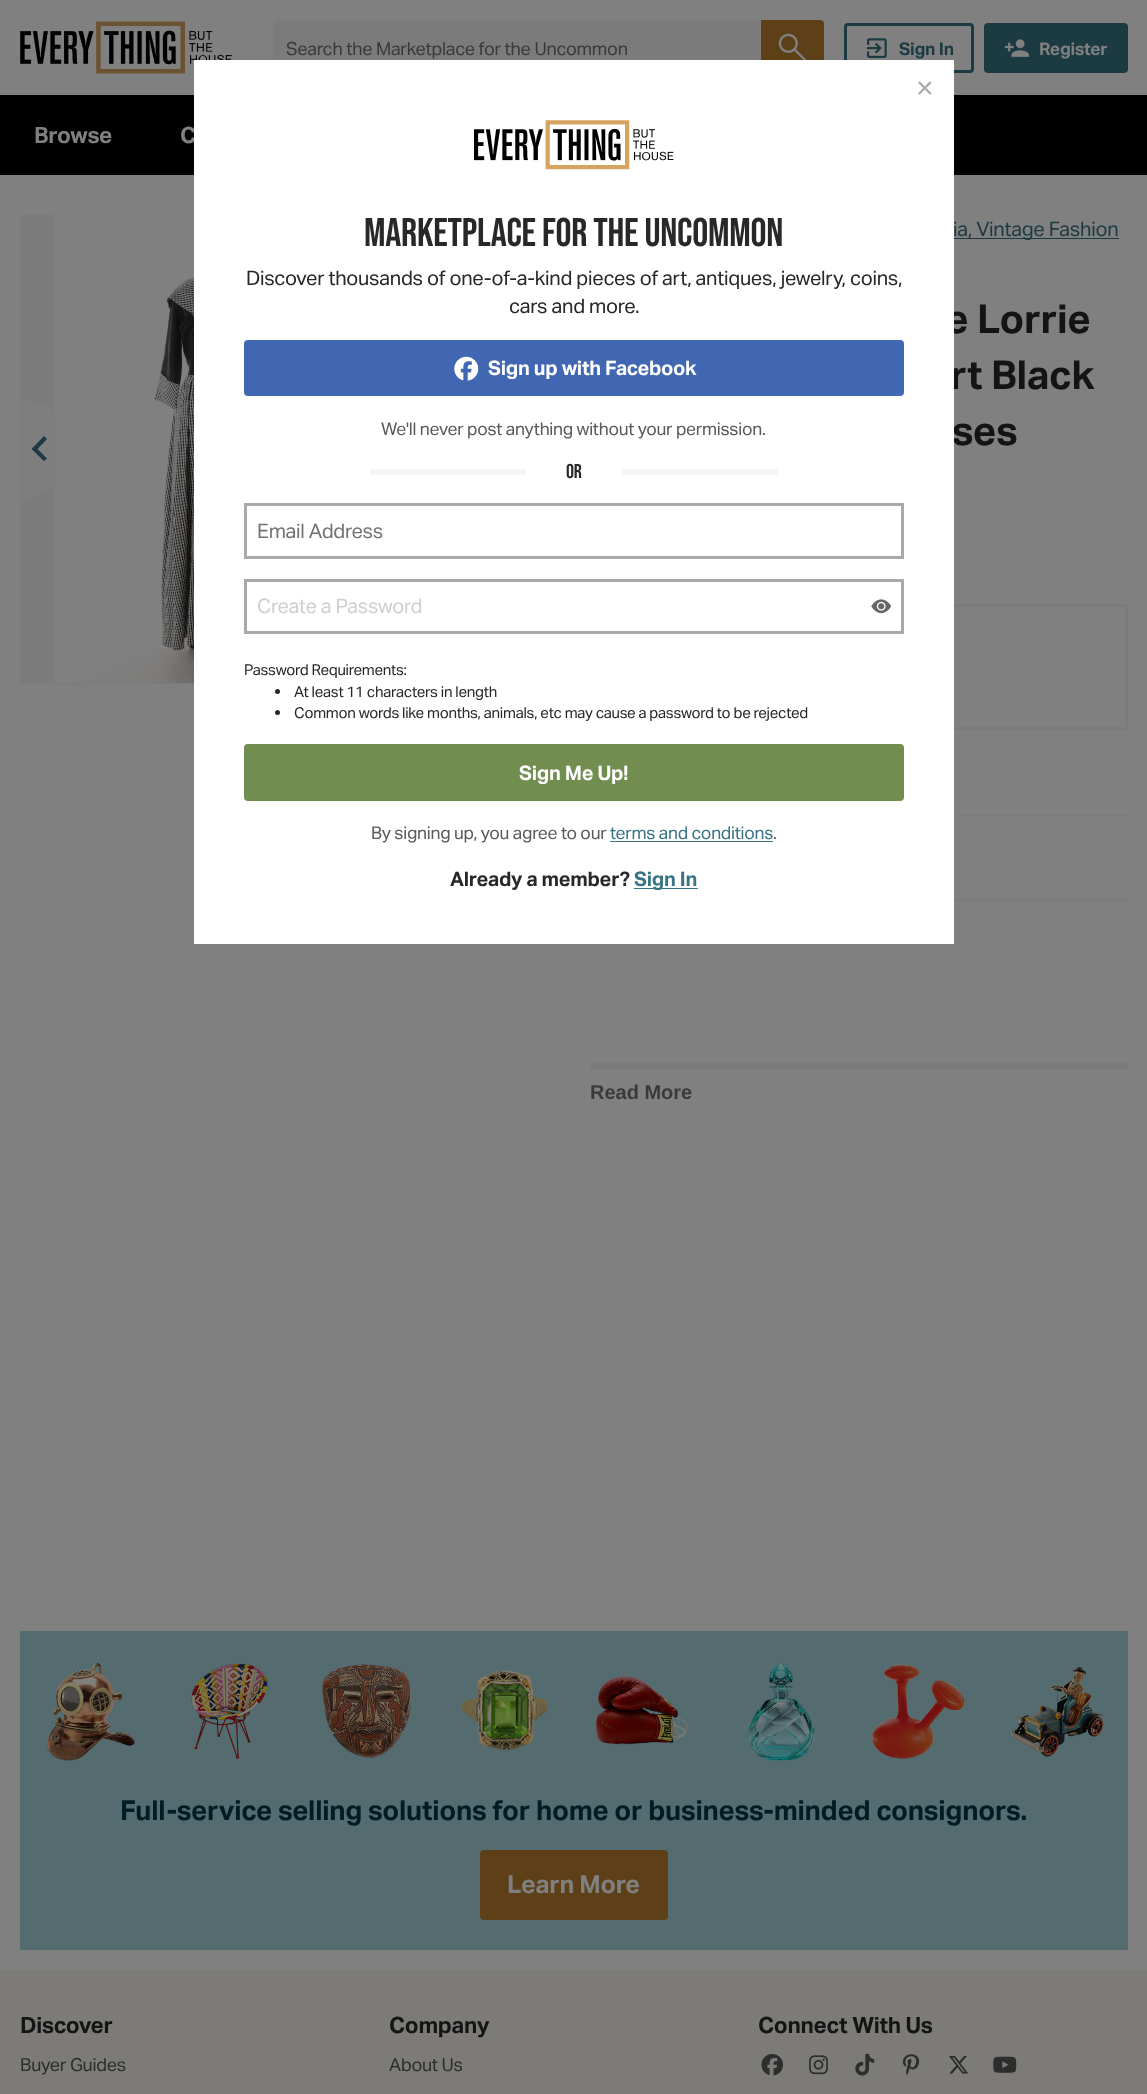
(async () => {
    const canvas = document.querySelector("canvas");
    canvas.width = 1147;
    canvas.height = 2094;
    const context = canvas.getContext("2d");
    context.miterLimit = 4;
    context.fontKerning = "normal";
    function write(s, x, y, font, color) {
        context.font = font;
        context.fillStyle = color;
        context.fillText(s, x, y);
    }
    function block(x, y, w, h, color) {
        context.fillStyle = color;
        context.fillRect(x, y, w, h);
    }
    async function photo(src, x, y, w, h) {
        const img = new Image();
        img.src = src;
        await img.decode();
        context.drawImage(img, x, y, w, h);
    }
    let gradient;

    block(0, 0, 1147, 2094, "rgb(128, 128, 128)");
    await photo("media/1.png", 20, 21, 212, 53);
    context.fillStyle = "rgb(123, 123, 123)";
    context.beginPath();
    context.roundRect(273, 20, 488, 55, [4, 0, 0, 4]);
    context.fill();
    context.letterSpacing = "-0.25px";
    write("Search the Marketplace for the Uncommon", 286, 55, "18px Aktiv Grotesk", "rgb(58, 58, 58)");
    context.fillStyle = "rgb(93, 64, 24)";
    context.beginPath();
    context.roundRect(762.5, 21.5, 60, 52, [0, 2.5, 2.5, 0]);
    context.fill();
    context.strokeStyle = "rgb(93, 64, 24)";
    context.lineWidth = 3;
    context.stroke();
    await photo("media/2.png", 778, 33, 29, 27);
    context.beginPath();
    context.roundRect(845.5, 24.5, 127, 47, 2.5);
    context.strokeStyle = "rgb(28, 58, 66)";
    context.stroke();
    await photo("media/3.png", 867, 38, 20, 20);
    write("Sign In", 899, 55, "bold 17.5px Aktiv Grotesk", "rgb(28, 58, 66)");
    context.beginPath();
    context.roundRect(985.5, 24.5, 141, 47, 2.5);
    context.fill();
    context.stroke();
    await photo("media/4.png", 1004, 39, 25, 18);
    write("Register", 1039, 55, "bold 17.5px Aktiv Grotesk", "rgb(128, 128, 128)");
    block(0, 95, 1147, 80, "rgb(2, 1, 1)");
    write("Browse", 34, 143, "bold 22.5px Aktiv Grotesk", "rgb(128, 128, 128)");
    write("C", 180, 143, "bold 22.5px Aktiv Grotesk", "rgb(128, 128, 128)");
    write("e Lorrie", 945, 333, "bold 40px Aktiv Grotesk", "rgb(21, 20, 20)");
    write("rt Black", 950, 389, "bold 40px Aktiv Grotesk", "rgb(21, 20, 20)");
    write("ses", 952, 445, "bold 40px Aktiv Grotesk", "rgb(21, 20, 20)");
    context.beginPath();
    context.roundRect(591.5, 605.5, 535, 123, 2.5);
    context.strokeStyle = "rgb(123, 123, 123)";
    context.stroke();
    block(954, 899, 174, 3, "rgb(123, 123, 123)");
    block(590, 1040, 538, 1, "rgb(123, 123, 123)");
    gradient = context.createLinearGradient(859, 730, 859, 1043);
    gradient.addColorStop(0, "rgba(128, 128, 128, 0)");
    gradient.addColorStop(1, "rgb(128, 128, 128)");
    context.fillStyle = gradient;
    context.fillRect(590, 900, 538, 141);
    block(194, 60, 760, 884, "rgb(255, 255, 255)");
    context.letterSpacing = "0px";
    write("×", 916, 98, "30px Liberation Sans", "rgb(169, 169, 169)");
    await photo("media/5.png", 474, 120, 200, 50);
    context.letterSpacing = "-0.25px";
    write("MARKETPLACE FOR THE UNCOMMON", 364, 246, "40px Bebas Neue", "rgb(41, 39, 40)");
    write("Discover thousands of one-of-a-kind pieces of art, antiques, jewelry, coins,", 246, 285, "20px Aktiv Grotesk", "rgb(41, 39, 40)");
    write("cars and more.", 509, 313, "20px Aktiv Grotesk", "rgb(41, 39, 40)");
    context.fillStyle = "rgb(66, 103, 178)";
    context.beginPath();
    context.roundRect(245.5, 341.5, 657, 53, 2.5);
    context.fill();
    context.strokeStyle = "rgb(66, 103, 178)";
    context.stroke();
    await photo("media/6.png", 454, 356, 25, 25);
    write("Sign up with Facebook", 488, 375, "bold 20px Aktiv Grotesk", "rgb(255, 255, 255)");
    write("We'll never post anything without your permission.", 381, 435, "17.5px Aktiv Grotesk", "rgb(90, 90, 90)");
    block(370, 469, 156, 6, "rgb(245, 245, 245)");
    write("OR", 566, 478, "20px Bebas Neue", "rgb(41, 39, 40)");
    block(621, 469, 157, 6, "rgb(245, 245, 245)");
    context.strokeStyle = "rgb(169, 169, 169)";
    context.strokeRect(245.5, 504.5, 657, 53);
    write("Email Address", 257, 538, "20px Aktiv Grotesk", "rgb(116, 115, 116)");
    context.strokeRect(245.5, 580.5, 657, 52);
    write("Create a Password", 257, 613, "20px Aktiv Grotesk", "rgb(207, 207, 207)");
    await photo("media/7.png", 871, 599, 20, 15);
    write("Password Requirements:", 244, 675, "15px Aktiv Grotesk", "rgb(41, 39, 40)");
    context.beginPath();
    context.arc(277.5, 691.5, 2.5, 0, Math.PI * 2);
    context.fill();
    write("At least 11 characters in length", 294, 697, "15px Aktiv Grotesk", "rgb(41, 39, 40)");
    context.beginPath();
    context.arc(277.5, 712.5, 2.5, 0, Math.PI * 2);
    context.fill();
    write("Common words like months, animals, etc may cause a password to be rejected", 294, 718, "15px Aktiv Grotesk", "rgb(41, 39, 40)");
    context.fillStyle = "rgb(113, 141, 80)";
    context.beginPath();
    context.roundRect(245.5, 745.5, 657, 54, 2.5);
    context.fill();
    context.strokeStyle = "rgb(113, 141, 80)";
    context.stroke();
    write("Sign Me Up!", 519, 780, "bold 20px Aktiv Grotesk", "rgb(255, 255, 255)");
    write("By signing up, you agree to our", 371, 839, "17.5px Aktiv Grotesk", "rgb(90, 90, 90)");
    write("terms and conditions", 610, 839, "17.5px Aktiv Grotesk", "rgb(56, 116, 131)");
    block(610, 841, 163, 1, "rgb(56, 116, 131)");
    write(".", 773, 839, "17.5px Aktiv Grotesk", "rgb(90, 90, 90)");
    write("Already a member?", 450, 886, "bold 20px Aktiv Grotesk", "rgb(41, 39, 40)");
    block(634, 888, 64, 1, "rgb(56, 116, 131)");
    write("Sign In", 634, 886, "bold 20px Aktiv Grotesk", "rgb(56, 116, 131)");
    block(20, 215, 174, 469, "rgb(123, 123, 123)");
    await photo("media/8.png", 54, 215, 140, 469);
    context.fillStyle = "rgba(128, 128, 128, 0.6)";
    context.beginPath();
    context.roundRect(20, 399, 50, 100, [0, 50, 50, 0]);
    context.fill();
    context.fillStyle = "rgb(28, 58, 66)";
    context.beginPath();
    context.moveTo(47, 439);
    context.lineTo(44, 436);
    context.lineTo(31.5, 449);
    context.lineTo(44, 461);
    context.lineTo(47, 458.5);
    context.lineTo(37.5, 449);
    context.closePath();
    context.fill();
    block(954, 238, 165, 1, "rgb(28, 58, 66)");
    write("ia, Vintage Fashion", 953, 236, "20px Aktiv Grotesk", "rgb(28, 58, 66)");
    block(954, 815, 174, 1, "rgb(123, 123, 123)");
    block(590, 1063, 538, 6, "rgb(123, 123, 123)");
    context.letterSpacing = "0px";
    write("Read More", 590, 1099, "bold 20px Liberation Sans", "rgb(58, 58, 58)");
    block(20, 1631, 1108, 319, "rgb(84, 108, 111)");
    await photo("media/9.png", 47, 1662, 88, 99);
    await photo("media/10.png", 191, 1663, 77, 96);
    await photo("media/11.png", 321, 1664, 91, 94);
    await photo("media/12.png", 461, 1670, 87, 81);
    await photo("media/13.png", 595, 1675, 93, 70);
    await photo("media/14.png", 747, 1662, 68, 99);
    await photo("media/15.png", 871, 1664, 94, 95);
    await photo("media/16.png", 1010, 1667, 94, 90);
    context.letterSpacing = "-0.25px";
    write("Full-service selling solutions for home or business-minded consignors.", 120, 1820, "bold 27.5px Aktiv Grotesk", "rgb(0, 29, 37)");
    context.fillStyle = "rgb(93, 64, 24)";
    context.beginPath();
    context.roundRect(481.5, 1851.5, 185, 67, 2.5);
    context.fill();
    context.strokeStyle = "rgb(93, 64, 24)";
    context.stroke();
    write("Learn More", 507, 1893, "bold 25px Aktiv Grotesk", "rgb(128, 128, 128)");
    block(0, 1970, 1147, 124, "rgb(125, 123, 119)");
    write("Discover", 20, 2033, "bold 22.5px Aktiv Grotesk", "rgb(21, 20, 20)");
    write("Buyer Guides", 20, 2071, "18px Aktiv Grotesk", "rgb(45, 45, 45)");
    write("Company", 389, 2033, "bold 22.5px Aktiv Grotesk", "rgb(21, 20, 20)");
    write("About Us", 389, 2071, "18px Aktiv Grotesk", "rgb(45, 45, 45)");
    write("Connect With Us", 758, 2033, "bold 22.5px Aktiv Grotesk", "rgb(21, 20, 20)");
    await photo("media/17.png", 761, 2054, 22, 22);
    await photo("media/18.png", 809, 2055, 19, 20);
    await photo("media/19.png", 855, 2053, 20, 23);
    await photo("media/20.png", 902, 2054, 18, 22);
    await photo("media/21.png", 949, 2056, 20, 18);
    await photo("media/22.png", 993, 2056, 24, 17);
})();
